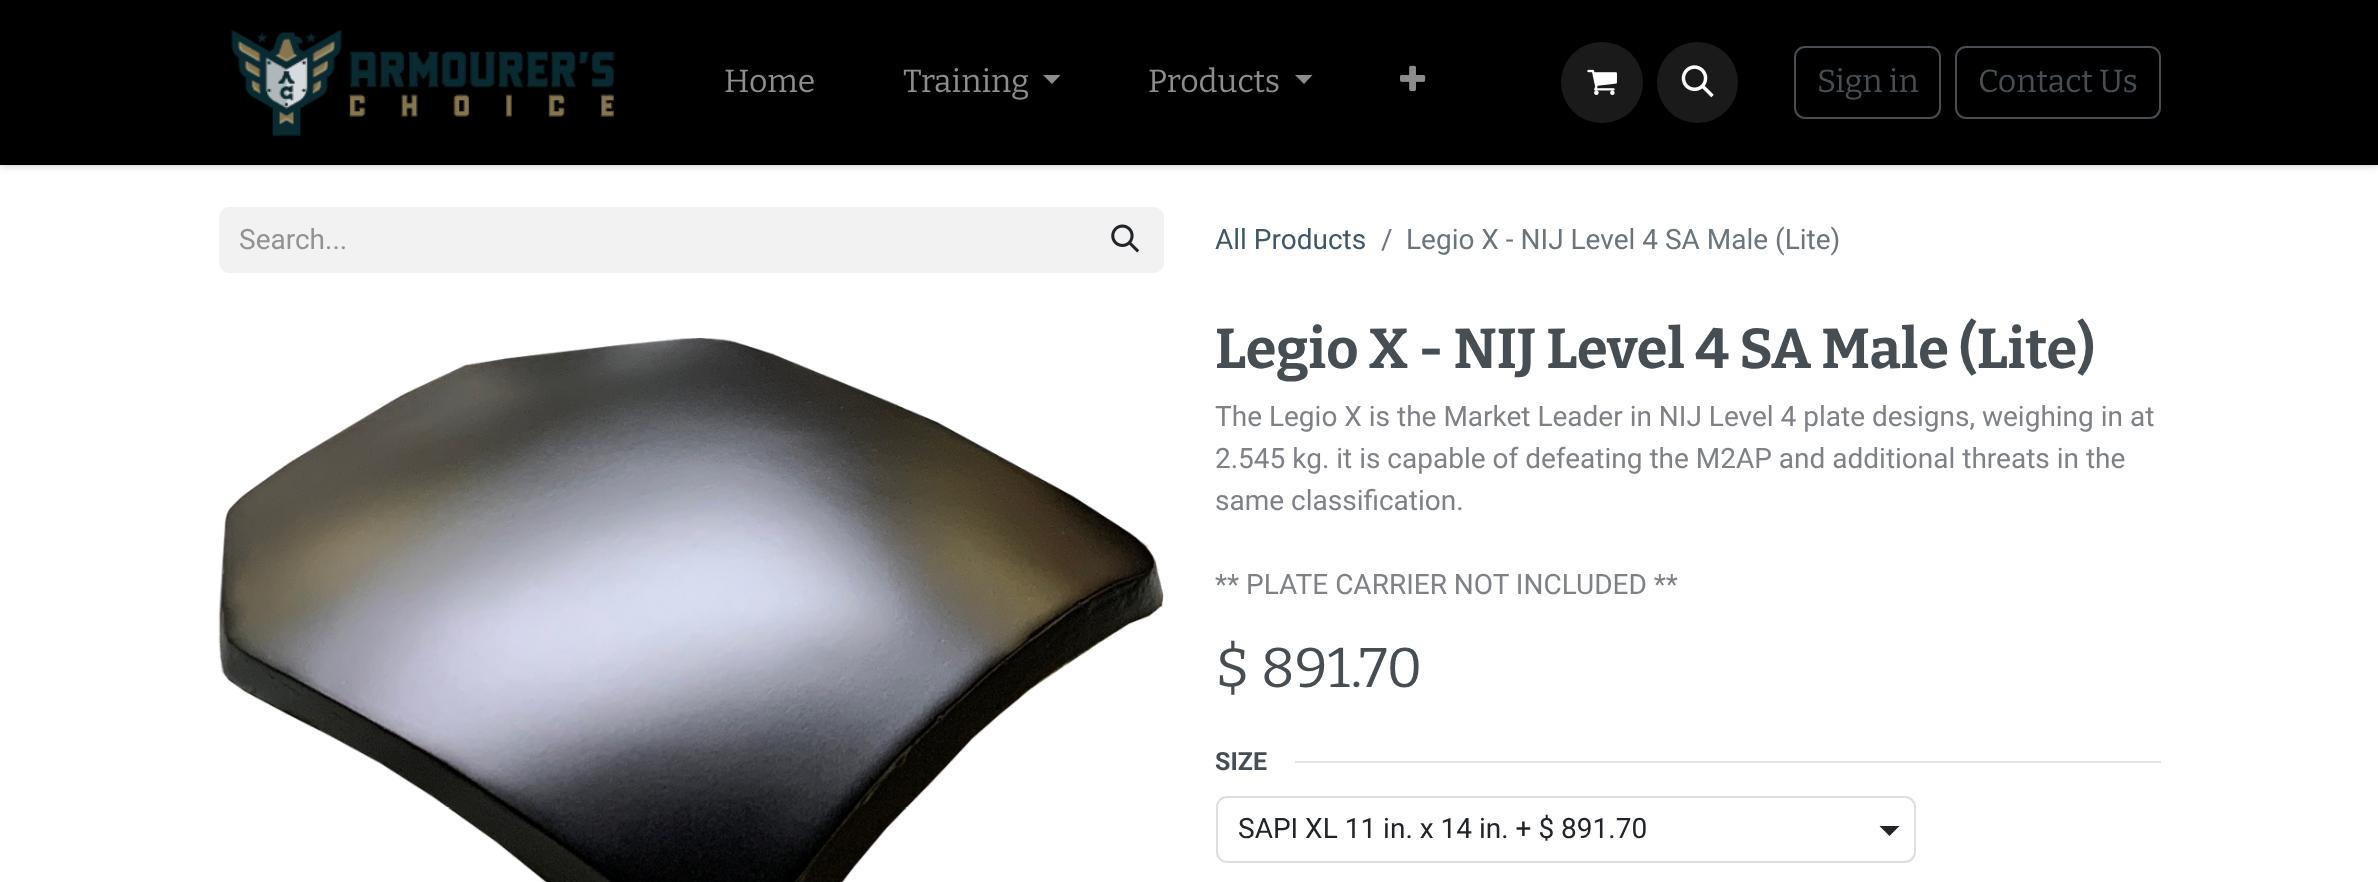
(async () => {
    const canvas = document.querySelector("canvas");
    canvas.width = 2378;
    canvas.height = 882;
    const context = canvas.getContext("2d");
    context.miterLimit = 4;
    context.fontKerning = "normal";
    function write(s, x, y, font, color) {
        context.font = font;
        context.fillStyle = color;
        context.fillText(s, x, y);
    }
    function block(x, y, w, h, color) {
        context.fillStyle = color;
        context.fillRect(x, y, w, h);
    }
    function card(x, y, w, h, r, color) {
        context.fillStyle = color;
        context.beginPath();
        context.roundRect(x, y, w, h, r);
        context.fill();
    }
    async function photo(src, x, y, w, h) {
        const img = new Image();
        img.src = src;
        await img.decode();
        context.drawImage(img, x, y, w, h);
    }

    block(0, 0, 2378, 882, "rgb(255, 255, 255)");
    context.fillStyle = "rgba(0, 0, 0, 0.25)";
    context.filter = "blur(4.5px)";
    context.beginPath();
    context.rect(0, 0, 2378, 165);
    context.fill();
    context.filter = "none";
    block(0, 0, 2378, 165, "rgb(0, 0, 0)");
    await photo("media/1.png", 231, 30, 384, 106);
    write("Home", 724, 92, "32px Bitter", "rgb(140, 140, 140)");
    write("Training", 903, 92, "32px Bitter", "rgb(140, 140, 140)");
    context.beginPath();
    context.moveTo(1043, 75);
    context.lineTo(1060.5, 75);
    context.lineTo(1052, 84);
    context.closePath();
    context.fill();
    write("Products", 1148, 92, "32px Bitter", "rgb(140, 140, 140)");
    context.beginPath();
    context.moveTo(1295, 75);
    context.lineTo(1312.5, 75);
    context.lineTo(1304, 84);
    context.closePath();
    context.fill();
    await photo("media/2.png", 1400, 65, 26, 26);
    card(1561, 42, 82, 81, 40.5, "rgb(26, 26, 26)");
    await photo("media/3.png", 1587, 69, 30, 26);
    context.beginPath();
    context.arc(1697.5, 82.5, 40.5, 0, Math.PI * 2);
    context.fill();
    await photo("media/4.png", 1681, 65, 33, 33);
    context.beginPath();
    context.roundRect(1795, 47, 145, 71, 10);
    context.strokeStyle = "rgb(70, 77, 83)";
    context.lineWidth = 2;
    context.stroke();
    write("Sign in", 1817, 92, "32px Bitter", "rgb(70, 77, 83)");
    context.beginPath();
    context.roundRect(1956, 47, 204, 71, 10);
    context.stroke();
    write("Contact Us", 1978, 92, "32px Bitter", "rgb(70, 77, 83)");
    context.fillStyle = "rgb(242, 242, 242)";
    context.beginPath();
    context.roundRect(219, 207, 871, 66, [11, 0, 0, 11]);
    context.fill();
    write("Search...", 239, 249, "28px Roboto", "rgb(144, 146, 148)");
    context.fillStyle = "rgb(242, 242, 242)";
    context.beginPath();
    context.roundRect(1090, 208, 73, 64, [0, 10, 10, 0]);
    context.fill();
    context.strokeStyle = "rgb(242, 242, 242)";
    context.stroke();
    await photo("media/5.png", 1111, 224, 29, 29);
    write("All Products", 1215, 249, "28px Roboto", "rgb(64, 87, 106)");
    write("/", 1381, 249, "28px Roboto", "rgb(108, 117, 125)");
    write("Legio X - NIJ Level 4 SA Male (Lite)", 1406, 249, "28px Roboto", "rgb(108, 117, 125)");
    await photo("media/6.png", 218, 338, 946, 544);
    write("Legio X - NIJ Level 4 SA Male (Lite)", 1215, 368, "bold 56px Bitter", "rgb(70, 77, 83)");
    write("The Legio X is the Market Leader in NIJ Level 4 plate designs, weighing in at", 1215, 426, "28px Roboto", "rgb(126, 130, 135)");
    write("2.545 kg. it is capable of defeating the M2AP and additional threats in the", 1215, 468, "28px Roboto", "rgb(126, 130, 135)");
    write("same classification.", 1215, 510, "28px Roboto", "rgb(126, 130, 135)");
    write("** PLATE CARRIER NOT INCLUDED **", 1215, 594, "28px Roboto", "rgb(126, 130, 135)");
    write("$ 891.70", 1215, 687, "56px Bitter", "rgb(70, 77, 83)");
    write("SIZE", 1215, 770, "bold 25px Roboto", "rgb(70, 77, 83)");
    block(1295, 761, 866, 2, "rgb(227, 228, 229)");
    context.fillStyle = "rgb(33, 37, 41)";
    context.beginPath();
    context.moveTo(1879.5, 826);
    context.lineTo(1899.5, 826);
    context.lineTo(1889.5, 836);
    context.closePath();
    context.fill();
    context.beginPath();
    context.roundRect(1217, 797, 698, 65, 10);
    context.strokeStyle = "rgb(222, 222, 223)";
    context.stroke();
    write("SAPI XL 11 in. x 14 in. + $ 891.70", 1238, 838, "28px Roboto", "rgb(33, 37, 41)");
})();
